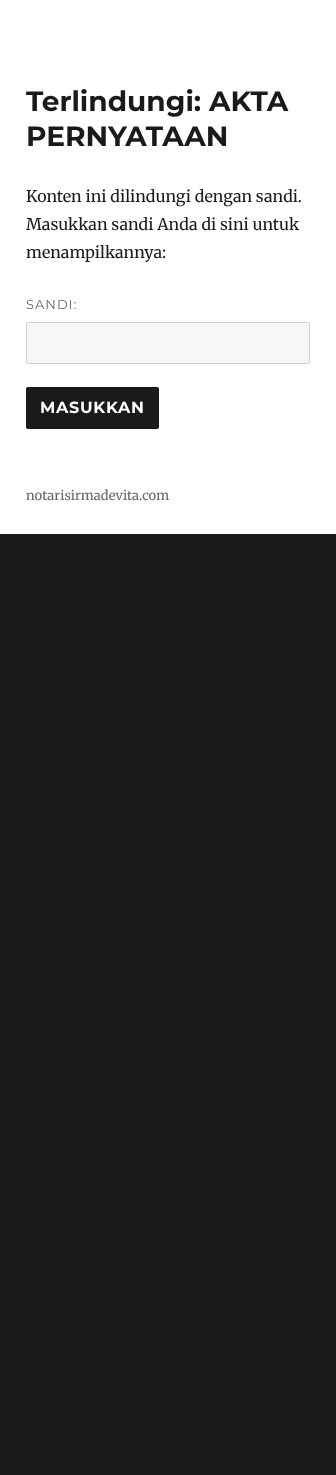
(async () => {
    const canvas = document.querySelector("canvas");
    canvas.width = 336;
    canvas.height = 1475;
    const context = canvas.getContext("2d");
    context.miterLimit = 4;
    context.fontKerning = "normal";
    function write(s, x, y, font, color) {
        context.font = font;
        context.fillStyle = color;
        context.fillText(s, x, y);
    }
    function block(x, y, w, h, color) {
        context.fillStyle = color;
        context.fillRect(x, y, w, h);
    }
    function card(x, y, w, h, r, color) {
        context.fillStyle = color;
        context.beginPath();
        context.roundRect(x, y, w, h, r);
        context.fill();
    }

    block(0, 0, 336, 1475, "rgb(26, 26, 26)");
    block(0, 0, 336, 534, "rgb(255, 255, 255)");
    write("Terlindungi: AKTA", 26, 111, "bold 28px Montserrat", "rgb(26, 26, 26)");
    write("PERNYATAAN", 26, 146, "bold 28px Montserrat", "rgb(26, 26, 26)");
    write("Konten ini dilindungi dengan sandi.", 26, 202, "16px Merriweather", "rgb(26, 26, 26)");
    write("Masukkan sandi Anda di sini untuk", 26, 230, "16px Merriweather", "rgb(26, 26, 26)");
    write("menampilkannya:", 26, 258, "16px Merriweather", "rgb(26, 26, 26)");
    context.letterSpacing = "1px";
    write("SANDI:", 26, 309, "13px Montserrat", "rgb(104, 104, 104)");
    context.fillStyle = "rgb(247, 247, 247)";
    context.beginPath();
    context.roundRect(26.5, 322.5, 283, 41, 1.5);
    context.fill();
    context.strokeStyle = "rgb(209, 209, 209)";
    context.stroke();
    card(26, 387, 133, 42, 2, "rgb(26, 26, 26)");
    context.letterSpacing = "0.75px";
    write("MASUKKAN", 40, 413, "bold 16px Montserrat", "rgb(255, 255, 255)");
    context.letterSpacing = "0px";
    write("notarisirmadevita.com", 26, 500, "13px Merriweather", "rgb(104, 104, 104)");
})();
